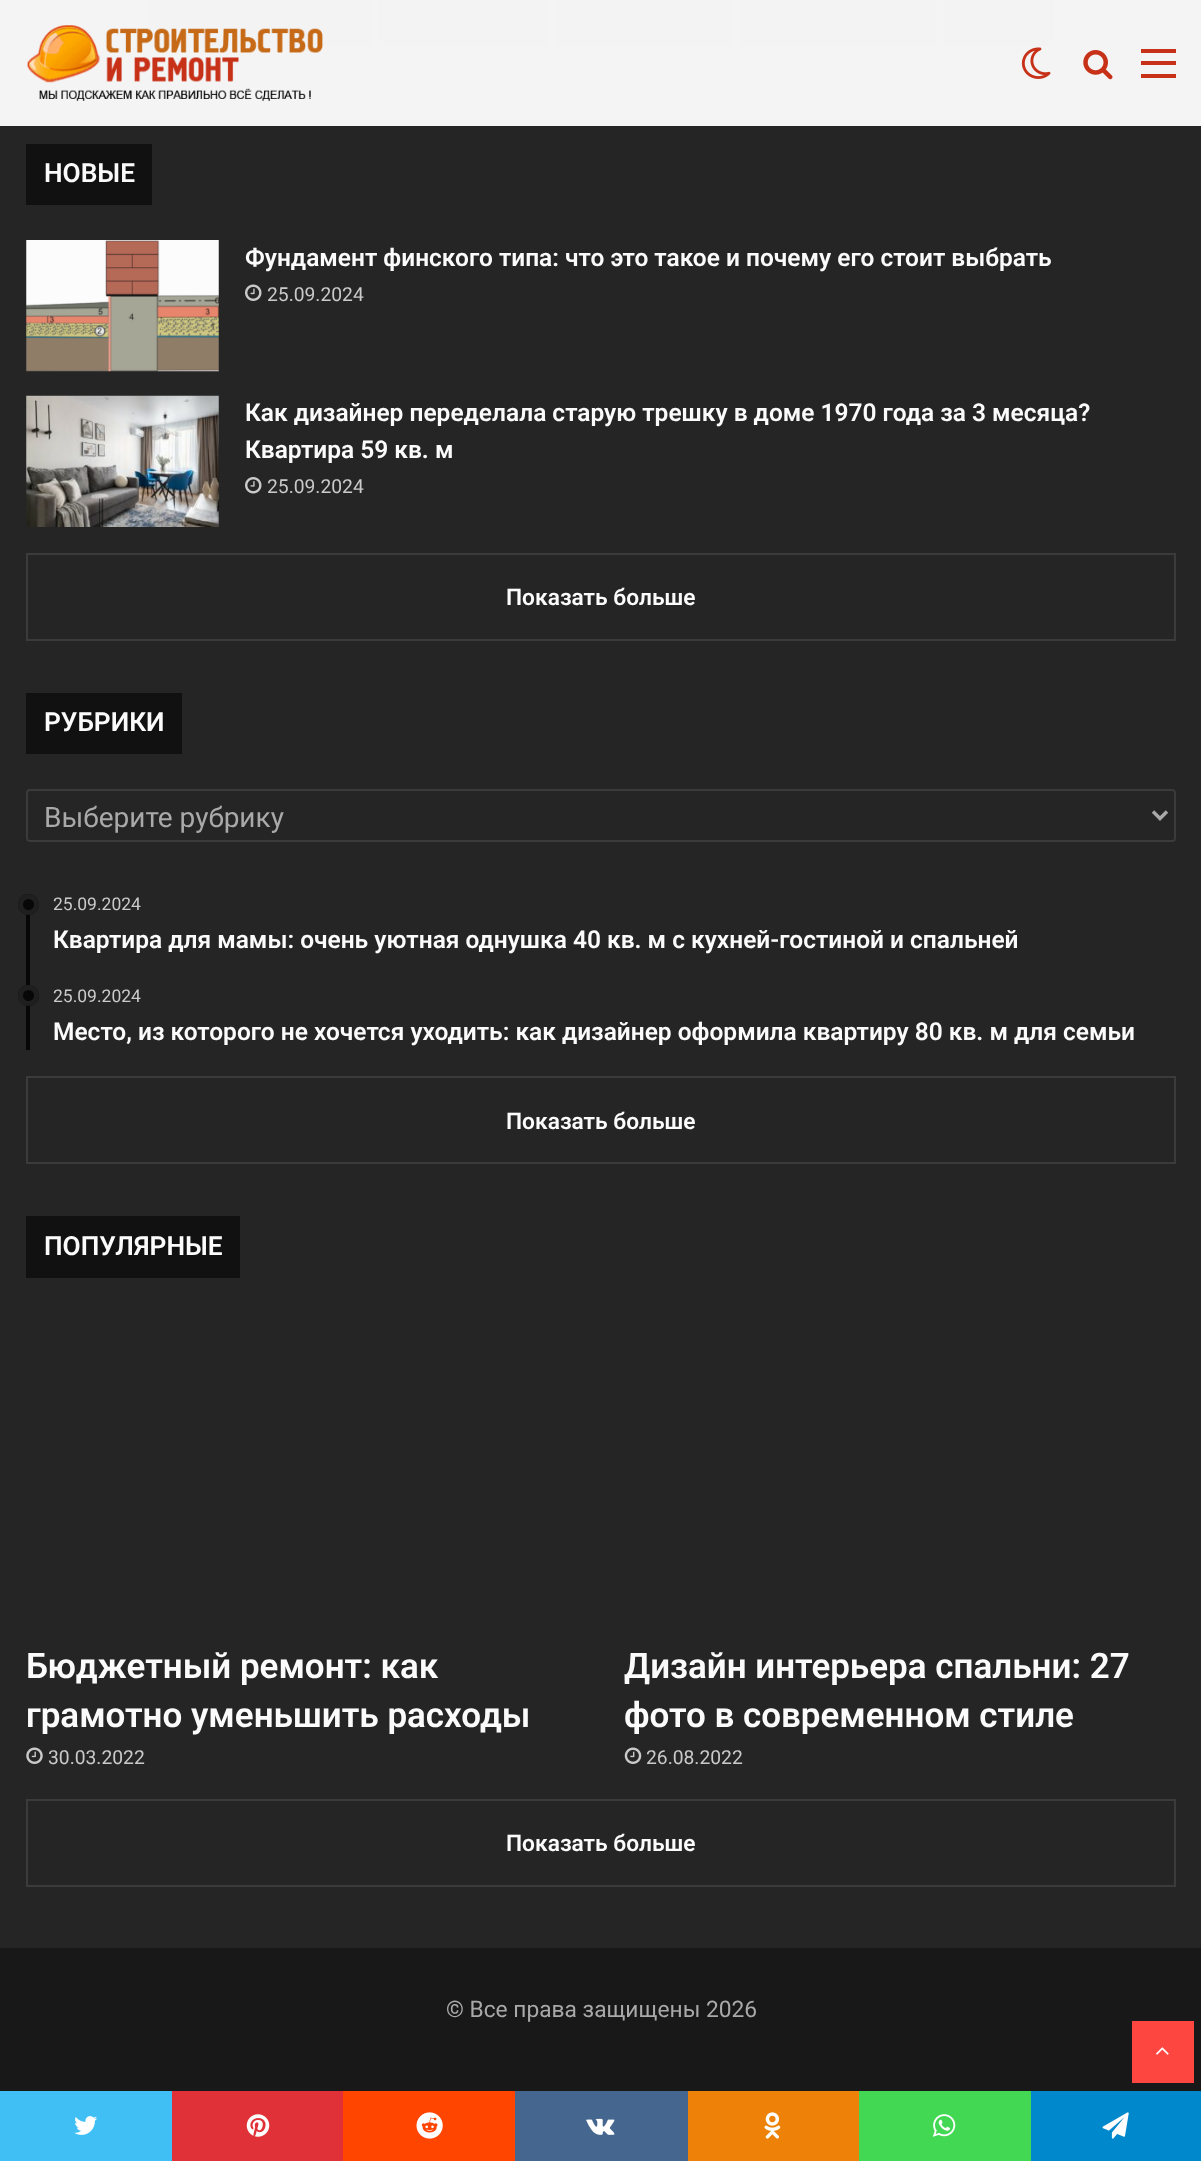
(async () => {
    const canvas = document.querySelector("canvas");
    canvas.width = 1201;
    canvas.height = 2161;
    const context = canvas.getContext("2d");
    context.miterLimit = 4;
    context.fontKerning = "normal";
    function write(s, x, y, font, color) {
        context.font = font;
        context.fillStyle = color;
        context.fillText(s, x, y);
    }
    function block(x, y, w, h, color) {
        context.fillStyle = color;
        context.fillRect(x, y, w, h);
    }
    async function photo(src, x, y, w, h) {
        const img = new Image();
        img.src = src;
        await img.decode();
        context.drawImage(img, x, y, w, h);
    }

    block(0, 0, 1201, 2161, "rgb(37, 37, 37)");
    block(149, 0, 222, 46, "rgb(30, 30, 30)");
    block(378, 0, 170, 46, "rgb(30, 30, 30)");
    block(555, 0, 177, 46, "rgb(30, 30, 30)");
    block(739, 0, 197, 46, "rgb(30, 30, 30)");
    block(943, 0, 111, 46, "rgb(30, 30, 30)");
    block(0, 0, 1201, 126, "rgba(255, 255, 255, 0.95)");
    await photo("media/1.png", 27, 25, 296, 76);
    await photo("media/2.png", 1021, 47, 30, 32);
    await photo("media/3.png", 1083, 50, 30, 30);
    block(1141, 61, 35, 4, "rgb(198, 49, 24)");
    block(1141, 49, 35, 4, "rgb(198, 49, 24)");
    block(1141, 74, 35, 4, "rgb(198, 49, 24)");
    block(26, 144, 126, 61, "rgb(17, 17, 17)");
    write("НОВЫЕ", 44, 182, "600 26.25px Roboto", "rgb(251, 251, 251)");
    await photo("media/4.png", 26, 240, 193, 132);
    write("Фундамент финского типа: что это такое и почему его стоит выбрать", 245, 266, "600 24.5px Roboto", "rgb(251, 251, 251)");
    await photo("media/5.png", 245, 284, 17, 17);
    write("25.09.2024", 267, 301, "19.25px Roboto", "rgb(202, 202, 202)");
    await photo("media/6.png", 26, 395, 193, 132);
    write("Как дизайнер переделала старую трешку в доме 1970 года за 3 месяца?", 245, 421, "600 24.5px Roboto", "rgb(251, 251, 251)");
    write("Квартира 59 кв. м", 245, 458, "600 24.5px Roboto", "rgb(251, 251, 251)");
    await photo("media/7.png", 245, 477, 17, 17);
    write("25.09.2024", 267, 493, "19.25px Roboto", "rgb(202, 202, 202)");
    context.strokeStyle = "rgb(59, 59, 59)";
    context.lineWidth = 2;
    context.strokeRect(27, 554, 1148, 86);
    write("Показать больше", 506, 605, "600 22.75px Roboto", "rgb(251, 251, 251)");
    block(26, 693, 156, 61, "rgb(17, 17, 17)");
    write("РУБРИКИ", 44, 731, "600 26.25px Roboto", "rgb(251, 251, 251)");
    context.beginPath();
    context.roundRect(27, 790, 1148, 51, 3);
    context.stroke();
    context.beginPath();
    context.moveTo(1153, 811.5);
    context.lineTo(1160, 818.5);
    context.lineTo(1167, 811.5);
    context.strokeStyle = "rgb(169, 169, 169)";
    context.lineWidth = 3.5;
    context.stroke();
    write("Выберите рубрику", 44, 827, "28px Roboto", "rgb(169, 169, 169)");
    block(26, 894, 4, 156, "rgb(7, 7, 7)");
    context.beginPath();
    context.arc(28.5, 904.5, 10.5, 0, Math.PI * 2);
    context.fill();
    context.beginPath();
    context.arc(28.5, 904.5, 8, 0, Math.PI * 2);
    context.strokeStyle = "rgba(37, 37, 37, 0.8)";
    context.lineWidth = 5;
    context.stroke();
    write("25.09.2024", 53, 910, "17.5px Roboto", "rgb(202, 202, 202)");
    write("Квартира для мамы: очень уютная однушка 40 кв. м с кухней-гостиной и спальней", 53, 948, "600 24.5px Roboto", "rgb(251, 251, 251)");
    context.fillStyle = "rgb(7, 7, 7)";
    context.beginPath();
    context.arc(28.5, 995.5, 10.5, 0, Math.PI * 2);
    context.fill();
    context.beginPath();
    context.arc(28.5, 995.5, 8, 0, Math.PI * 2);
    context.stroke();
    write("25.09.2024", 53, 1002, "17.5px Roboto", "rgb(202, 202, 202)");
    write("Место, из которого не хочется уходить: как дизайнер оформила квартиру 80 кв. м для семьи", 53, 1040, "600 24.5px Roboto", "rgb(251, 251, 251)");
    context.strokeStyle = "rgb(59, 59, 59)";
    context.lineWidth = 2;
    context.strokeRect(27, 1077, 1148, 86);
    write("Показать больше", 506, 1129, "600 22.75px Roboto", "rgb(251, 251, 251)");
    block(26, 1216, 214, 62, "rgb(17, 17, 17)");
    write("ПОПУЛЯРНЫЕ", 44, 1255, "600 26.25px Roboto", "rgb(251, 251, 251)");
    write("Бюджетный ремонт: как", 26, 1678, "600 35px Roboto", "rgb(251, 251, 251)");
    write("грамотно уменьшить расходы", 26, 1727, "600 35px Roboto", "rgb(251, 251, 251)");
    await photo("media/8.png", 26, 1747, 17, 17);
    write("30.03.2022", 48, 1764, "19.25px Roboto", "rgb(202, 202, 202)");
    write("Дизайн интерьера спальни: 27", 624, 1678, "600 35px Roboto", "rgb(251, 251, 251)");
    write("фото в современном стиле", 624, 1727, "600 35px Roboto", "rgb(251, 251, 251)");
    await photo("media/9.png", 624, 1747, 18, 17);
    write("26.08.2022", 646, 1764, "19.25px Roboto", "rgb(202, 202, 202)");
    context.strokeRect(27, 1800, 1148, 86);
    write("Показать больше", 506, 1851, "600 22.75px Roboto", "rgb(251, 251, 251)");
    block(0, 1948, 1201, 143, "rgb(24, 24, 24)");
    write("© Все права защищены 2026", 446, 2017, "22.75px Roboto", "rgb(169, 169, 169)");
    block(1132, 2021, 62, 62, "rgb(254, 70, 65)");
    await photo("media/10.png", 1156, 2047, 13, 8);
    block(0, 2091, 172, 70, "rgb(64, 191, 245)");
    await photo("media/11.png", 74, 2116, 24, 19);
    block(172, 2091, 171, 70, "rgb(225, 49, 56)");
    await photo("media/12.png", 246, 2114, 24, 23);
    block(343, 2091, 172, 70, "rgb(255, 69, 0)");
    await photo("media/13.png", 416, 2112, 27, 27);
    block(515, 2091, 173, 70, "rgb(69, 102, 142)");
    await photo("media/14.png", 586, 2118, 29, 17);
    block(688, 2091, 171, 70, "rgb(238, 130, 8)");
    await photo("media/15.png", 764, 2112, 17, 27);
    block(859, 2091, 172, 70, "rgb(67, 216, 84)");
    await photo("media/16.png", 932, 2114, 24, 23);
    block(1031, 2091, 170, 70, "rgb(0, 136, 204)");
    await photo("media/17.png", 1102, 2112, 27, 27);
})();
